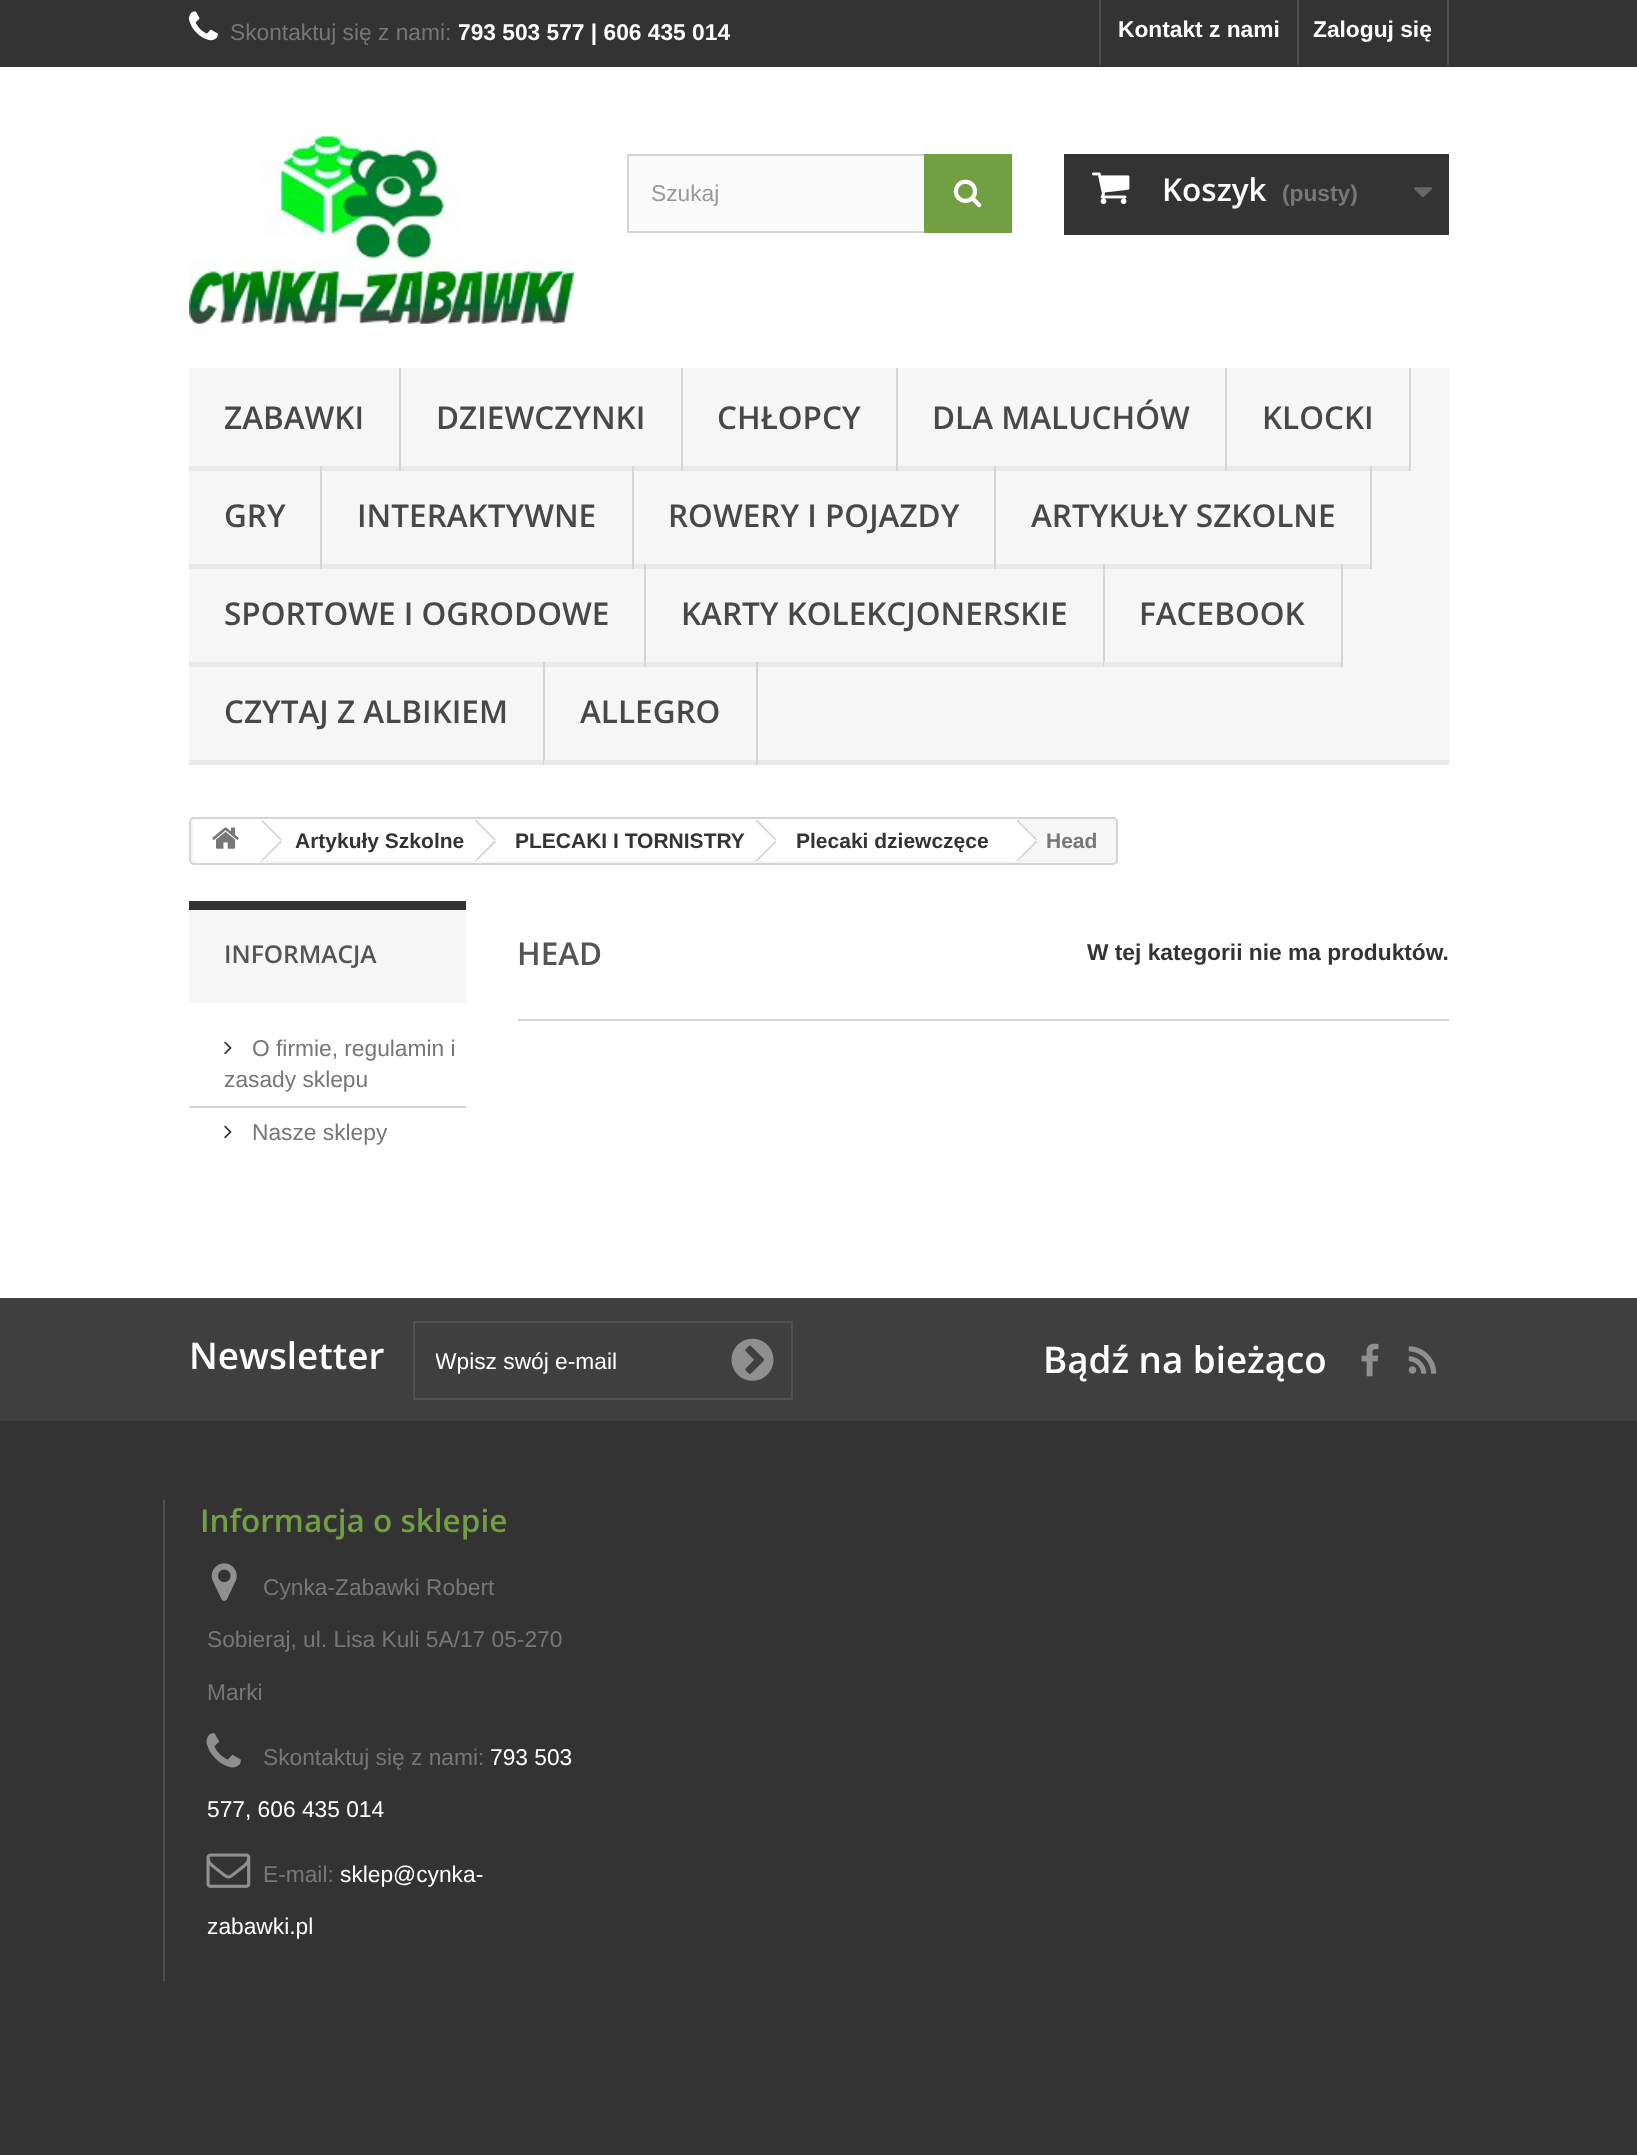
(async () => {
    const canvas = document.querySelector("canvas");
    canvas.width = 1637;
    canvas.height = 2155;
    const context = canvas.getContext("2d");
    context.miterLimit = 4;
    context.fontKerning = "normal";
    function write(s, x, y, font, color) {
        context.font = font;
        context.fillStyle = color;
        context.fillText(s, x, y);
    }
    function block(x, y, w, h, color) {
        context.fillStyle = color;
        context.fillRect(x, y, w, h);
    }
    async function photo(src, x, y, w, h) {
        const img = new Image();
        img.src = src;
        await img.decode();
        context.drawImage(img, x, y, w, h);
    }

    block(0, 0, 1637, 2155, "rgb(51, 51, 51)");
    block(0, 67, 1637, 1231, "rgb(255, 255, 255)");
    await photo("media/1.png", 189, 11, 29, 30);
    write("Skontaktuj się z nami:", 230, 40, "22.75px Liberation Sans", "rgb(119, 119, 119)");
    write("793 503 577 | 606 435 014", 458, 40, "bold 22.75px Liberation Sans", "rgb(255, 255, 255)");
    block(1099, 0, 2, 65, "rgb(81, 81, 81)");
    write("Kontakt z nami", 1118, 37, "bold 22.75px Liberation Sans", "rgb(255, 255, 255)");
    block(1447, 0, 2, 65, "rgb(81, 81, 81)");
    block(1297, 0, 2, 65, "rgb(81, 81, 81)");
    write("Zaloguj się", 1313, 37, "bold 22.75px Liberation Sans", "rgb(255, 255, 255)");
    await photo("media/2.png", 189, 136, 385, 188);
    block(629, 156, 295, 75, "rgb(251, 251, 251)");
    context.strokeStyle = "rgb(214, 212, 212)";
    context.lineWidth = 2;
    context.strokeRect(628, 155, 383, 77);
    write("Szukaj", 651, 201, "22.75px Liberation Sans", "rgb(153, 153, 153)");
    block(924, 154, 88, 79, "rgb(113, 159, 65)");
    await photo("media/3.png", 953, 179, 29, 29);
    block(1064, 154, 385, 81, "rgb(51, 51, 51)");
    await photo("media/4.png", 1092, 172, 38, 33);
    write("Koszyk", 1162, 201, "600 31.5px Open Sans", "rgb(255, 255, 255)");
    write("(pusty)", 1282, 201, "bold 22.75px Liberation Sans", "rgb(119, 119, 119)");
    await photo("media/5.png", 1414, 187, 18, 11);
    block(189, 368, 1260, 392, "rgb(246, 246, 246)");
    block(189, 760, 1260, 5, "rgb(233, 233, 233)");
    block(399, 368, 2, 103, "rgb(214, 212, 212)");
    block(189, 466, 210, 5, "rgb(233, 233, 233)");
    write("ZABAWKI", 224, 429, "600 31.5px Open Sans", "rgb(72, 72, 72)");
    block(681, 368, 2, 103, "rgb(214, 212, 212)");
    block(401, 466, 280, 5, "rgb(233, 233, 233)");
    write("DZIEWCZYNKI", 436, 429, "600 31.5px Open Sans", "rgb(72, 72, 72)");
    block(896, 368, 2, 103, "rgb(214, 212, 212)");
    block(683, 466, 213, 5, "rgb(233, 233, 233)");
    write("CHŁOPCY", 717, 429, "600 31.5px Open Sans", "rgb(72, 72, 72)");
    block(1225, 368, 2, 103, "rgb(214, 212, 212)");
    block(898, 466, 327, 5, "rgb(233, 233, 233)");
    write("DLA MALUCHÓW", 932, 429, "600 31.5px Open Sans", "rgb(72, 72, 72)");
    block(1409, 368, 2, 103, "rgb(214, 212, 212)");
    block(1227, 466, 182, 5, "rgb(233, 233, 233)");
    write("KLOCKI", 1262, 429, "600 31.5px Open Sans", "rgb(72, 72, 72)");
    block(320, 466, 2, 103, "rgb(214, 212, 212)");
    block(189, 564, 131, 5, "rgb(233, 233, 233)");
    write("GRY", 224, 527, "600 31.5px Open Sans", "rgb(72, 72, 72)");
    block(632, 466, 2, 103, "rgb(214, 212, 212)");
    block(322, 564, 310, 5, "rgb(233, 233, 233)");
    write("INTERAKTYWNE", 357, 527, "600 31.5px Open Sans", "rgb(72, 72, 72)");
    block(994, 466, 2, 103, "rgb(214, 212, 212)");
    block(634, 564, 360, 5, "rgb(233, 233, 233)");
    write("ROWERY I POJAZDY", 668, 527, "600 31.5px Open Sans", "rgb(72, 72, 72)");
    block(1370, 466, 2, 103, "rgb(214, 212, 212)");
    block(996, 564, 374, 5, "rgb(233, 233, 233)");
    write("ARTYKUŁY SZKOLNE", 1031, 527, "600 31.5px Open Sans", "rgb(72, 72, 72)");
    block(644, 564, 2, 103, "rgb(214, 212, 212)");
    block(189, 662, 455, 5, "rgb(233, 233, 233)");
    write("SPORTOWE I OGRODOWE", 224, 625, "600 31.5px Open Sans", "rgb(72, 72, 72)");
    block(1103, 564, 2, 103, "rgb(214, 212, 212)");
    block(646, 662, 457, 5, "rgb(233, 233, 233)");
    write("KARTY KOLEKCJONERSKIE", 681, 625, "600 31.5px Open Sans", "rgb(72, 72, 72)");
    block(1341, 564, 2, 103, "rgb(214, 212, 212)");
    block(1104, 662, 237, 5, "rgb(233, 233, 233)");
    write("FACEBOOK", 1139, 625, "600 31.5px Open Sans", "rgb(72, 72, 72)");
    block(543, 662, 2, 103, "rgb(214, 212, 212)");
    write("CZYTAJ Z ALBIKIEM", 224, 723, "600 31.5px Open Sans", "rgb(72, 72, 72)");
    block(756, 662, 2, 103, "rgb(214, 212, 212)");
    block(544, 760, 1, 5, "rgb(233, 233, 233)");
    write("ALLEGRO", 580, 723, "600 31.5px Open Sans", "rgb(72, 72, 72)");
    context.fillStyle = "rgb(246, 246, 246)";
    context.beginPath();
    context.roundRect(190, 818, 927, 46, 4);
    context.fill();
    context.stroke();
    context.fillStyle = "rgb(255, 255, 255)";
    context.beginPath();
    context.roundRect(193, 819, 66, 44, [5, 0, 0, 5]);
    context.fill();
    await photo("media/6.png", 212, 827, 27, 22);
    block(259, 819, 217, 42, "rgb(255, 255, 255)");
    context.beginPath();
    context.moveTo(263, 821);
    context.lineTo(281, 838);
    context.bezierCurveTo(282, 839, 282, 842, 281, 843);
    context.lineTo(263, 860);
    context.bezierCurveTo(262, 862, 260, 862, 258, 860);
    context.lineTo(241, 843);
    context.bezierCurveTo(240, 842, 240, 839, 241, 838);
    context.lineTo(258, 821);
    context.bezierCurveTo(260, 819, 262, 819, 263, 821);
    context.closePath();
    context.fill();
    context.fillStyle = "rgb(214, 212, 212)";
    context.beginPath();
    context.moveTo(262, 819.5);
    context.lineTo(282, 839.5);
    context.lineTo(280.5, 840.5);
    context.lineTo(261, 821);
    context.closePath();
    context.fill();
    context.beginPath();
    context.moveTo(280.5, 840.5);
    context.lineTo(282, 842);
    context.lineTo(262, 861.5);
    context.lineTo(261, 860.5);
    context.closePath();
    context.fill();
    write("Artykuły Szkolne", 295, 848, "bold 21px Liberation Sans", "rgb(51, 51, 51)");
    context.fillStyle = "rgb(255, 255, 255)";
    context.beginPath();
    context.moveTo(495, 821);
    context.lineTo(512, 838);
    context.bezierCurveTo(514, 839, 514, 842, 512, 843);
    context.lineTo(495, 860);
    context.bezierCurveTo(494, 862, 491, 862, 490, 860);
    context.lineTo(473, 843);
    context.bezierCurveTo(471, 842, 471, 839, 473, 838);
    context.lineTo(490, 821);
    context.bezierCurveTo(491, 819, 494, 819, 495, 821);
    context.closePath();
    context.fill();
    block(476, 819, 282, 42, "rgb(255, 255, 255)");
    context.fillStyle = "rgb(214, 212, 212)";
    context.beginPath();
    context.moveTo(476, 819.5);
    context.lineTo(496, 839.5);
    context.lineTo(494.5, 840.5);
    context.lineTo(475, 821);
    context.closePath();
    context.fill();
    context.beginPath();
    context.moveTo(494.5, 840.5);
    context.lineTo(496, 842);
    context.lineTo(476, 861.5);
    context.lineTo(475, 860.5);
    context.closePath();
    context.fill();
    write("PLECAKI I TORNISTRY", 515, 848, "bold 21px Liberation Sans", "rgb(51, 51, 51)");
    context.fillStyle = "rgb(255, 255, 255)";
    context.beginPath();
    context.moveTo(776, 821);
    context.lineTo(793, 838);
    context.bezierCurveTo(794, 839, 794, 842, 793, 843);
    context.lineTo(776, 860);
    context.bezierCurveTo(774, 862, 772, 862, 771, 860);
    context.lineTo(753, 843);
    context.bezierCurveTo(752, 842, 752, 839, 753, 838);
    context.lineTo(771, 821);
    context.bezierCurveTo(772, 819, 774, 819, 776, 821);
    context.closePath();
    context.fill();
    block(758, 819, 257, 42, "rgb(255, 255, 255)");
    context.fillStyle = "rgb(214, 212, 212)";
    context.beginPath();
    context.moveTo(757, 819.5);
    context.lineTo(776.5, 839.5);
    context.lineTo(775.5, 840.5);
    context.lineTo(755.5, 821);
    context.closePath();
    context.fill();
    context.beginPath();
    context.moveTo(775.5, 840.5);
    context.lineTo(776.5, 842);
    context.lineTo(757, 861.5);
    context.lineTo(755.5, 860.5);
    context.closePath();
    context.fill();
    write("Plecaki dziewczęce", 796, 848, "bold 21px Liberation Sans", "rgb(51, 51, 51)");
    context.fillStyle = "rgb(255, 255, 255)";
    context.beginPath();
    context.moveTo(1019, 821);
    context.lineTo(1036, 838);
    context.bezierCurveTo(1038, 839, 1038, 842, 1036, 843);
    context.lineTo(1019, 860);
    context.bezierCurveTo(1018, 862, 1015, 862, 1014, 860);
    context.lineTo(997, 843);
    context.bezierCurveTo(995, 842, 995, 839, 997, 838);
    context.lineTo(1014, 821);
    context.bezierCurveTo(1015, 819, 1018, 819, 1019, 821);
    context.closePath();
    context.fill();
    context.fillStyle = "rgb(214, 212, 212)";
    context.beginPath();
    context.moveTo(1017.5, 819.5);
    context.lineTo(1037.5, 839.5);
    context.lineTo(1036, 840.5);
    context.lineTo(1016.5, 821);
    context.closePath();
    context.fill();
    context.beginPath();
    context.moveTo(1036, 840.5);
    context.lineTo(1037.5, 842);
    context.lineTo(1017.5, 861.5);
    context.lineTo(1016.5, 860.5);
    context.closePath();
    context.fill();
    write("Head", 1046, 848, "bold 21px Liberation Sans", "rgb(119, 119, 119)");
    block(189, 910, 277, 93, "rgb(246, 246, 246)");
    block(189, 901, 277, 9, "rgb(51, 51, 51)");
    write("INFORMACJA", 224, 963, "600 24.5px Open Sans", "rgb(85, 84, 84)");
    await photo("media/7.png", 224, 1041, 8, 14);
    write("O firmie, regulamin i", 252, 1056, "22.75px Liberation Sans", "rgb(119, 119, 119)");
    write("zasady sklepu", 224, 1087, "22.75px Liberation Sans", "rgb(119, 119, 119)");
    block(189, 1106, 277, 2, "rgb(214, 212, 212)");
    await photo("media/7.png", 224, 1125, 8, 14);
    write("Nasze sklepy", 252, 1140, "22.75px Liberation Sans", "rgb(119, 119, 119)");
    block(518, 1019, 931, 2, "rgb(214, 212, 212)");
    write("HEAD", 517, 965, "600 31.5px Open Sans", "rgb(85, 84, 84)");
    write("W tej kategorii nie ma produktów.", 1087, 960, "bold 22.75px Liberation Sans", "rgb(51, 51, 51)");
    block(0, 1298, 1637, 123, "rgb(63, 63, 63)");
    write("Newsletter", 189, 1369, "600 36.75px Open Sans", "rgb(255, 255, 255)");
    context.strokeStyle = "rgb(81, 81, 81)";
    context.strokeRect(414, 1322, 378, 77);
    context.save();
    context.beginPath();
    context.rect(436, 1348, 280, 26);
    context.clip();
    write("Wpisz swój e-mail", 435, 1369, "22.75px Liberation Sans", "rgb(255, 255, 255)");
    context.restore();
    await photo("media/8.png", 731, 1338, 43, 43);
    write("Bądź na bieżąco", 1043, 1373, "600 36.75px Open Sans", "rgb(255, 255, 255)");
    await photo("media/9.png", 1361, 1343, 18, 34);
    await photo("media/10.png", 1408, 1346, 29, 28);
    block(163, 1500, 2, 481, "rgb(81, 81, 81)");
    write("Informacja o sklepie", 200, 1532, "600 31.5px Open Sans", "rgb(113, 159, 65)");
    await photo("media/11.png", 211, 1563, 26, 38);
    write("Cynka-Zabawki Robert", 263, 1595, "22.75px Liberation Sans", "rgb(119, 119, 119)");
    write("Sobieraj, ul. Lisa Kuli 5A/17 05-270", 207, 1647, "22.75px Liberation Sans", "rgb(119, 119, 119)");
    write("Marki", 207, 1700, "22.75px Liberation Sans", "rgb(119, 119, 119)");
    await photo("media/12.png", 206, 1733, 35, 35);
    write("Skontaktuj się z nami:", 263, 1765, "22.75px Liberation Sans", "rgb(119, 119, 119)");
    write("793 503", 490, 1765, "22.75px Liberation Sans", "rgb(255, 255, 255)");
    write("577, 606 435 014", 207, 1817, "22.75px Liberation Sans", "rgb(255, 255, 255)");
    await photo("media/13.png", 206, 1853, 45, 35);
    write("E-mail:", 263, 1882, "22.75px Liberation Sans", "rgb(119, 119, 119)");
    write("sklep@cynka-", 340, 1882, "22.75px Liberation Sans", "rgb(255, 255, 255)");
    write("zabawki.pl", 207, 1934, "22.75px Liberation Sans", "rgb(255, 255, 255)");
})();
